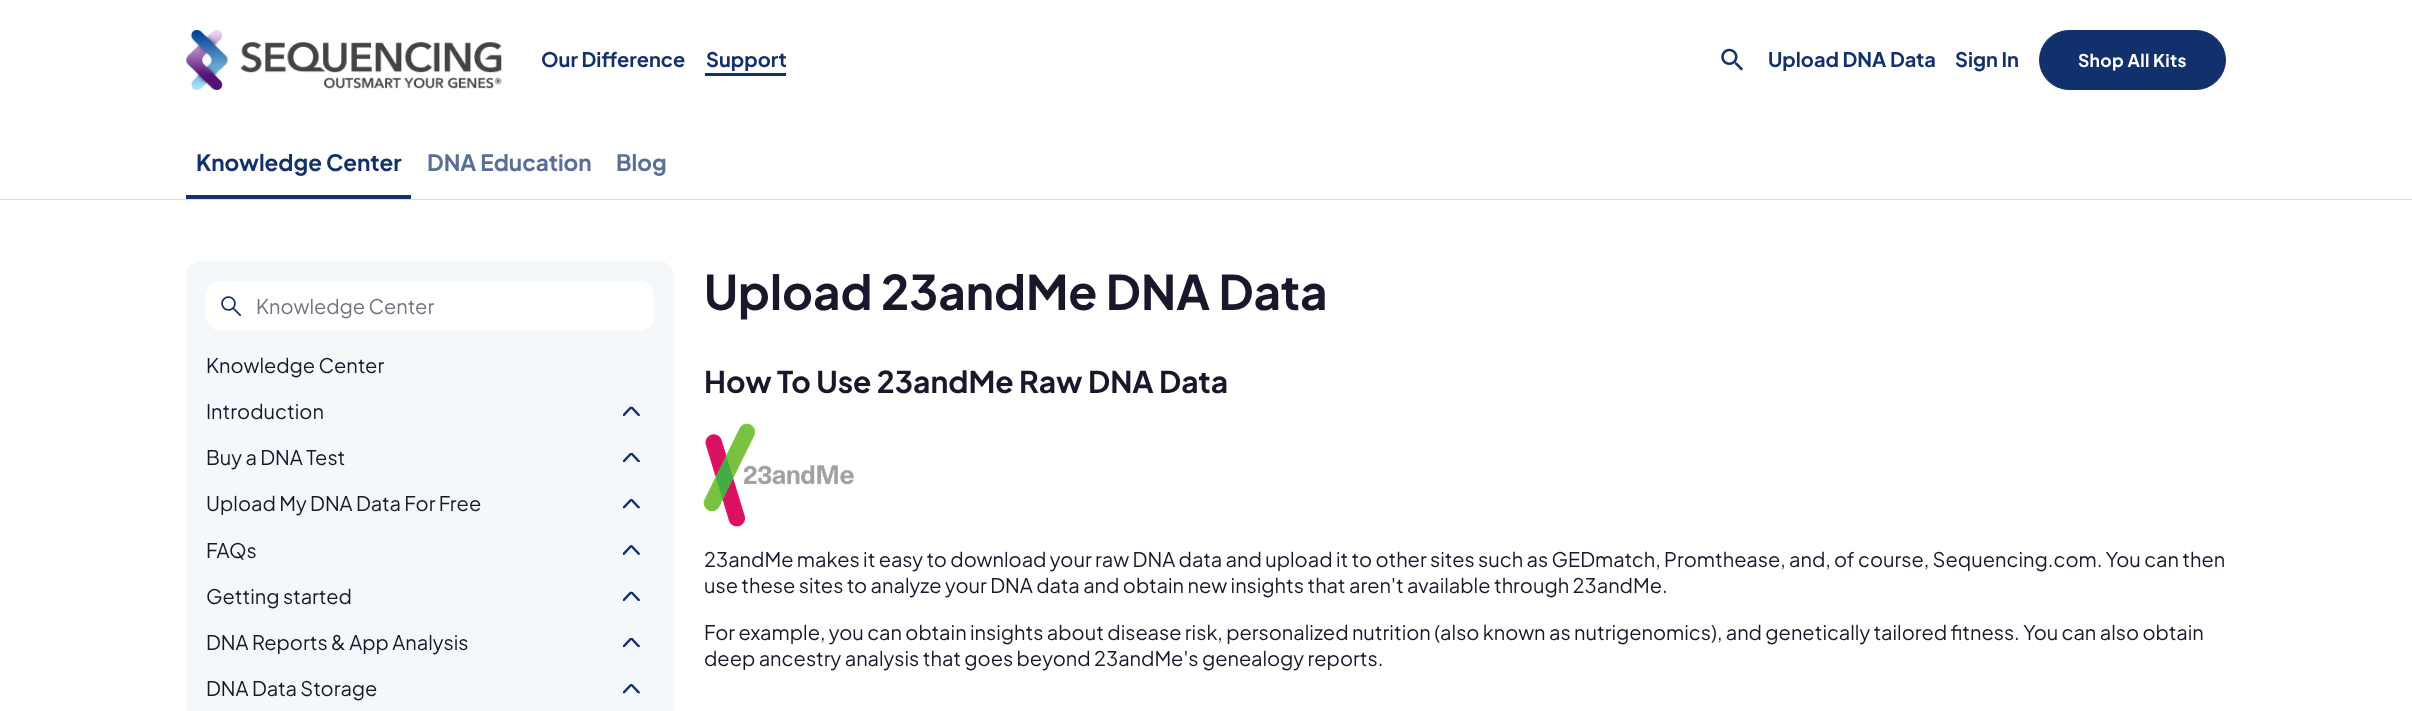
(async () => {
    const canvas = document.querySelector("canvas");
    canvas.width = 2412;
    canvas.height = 711;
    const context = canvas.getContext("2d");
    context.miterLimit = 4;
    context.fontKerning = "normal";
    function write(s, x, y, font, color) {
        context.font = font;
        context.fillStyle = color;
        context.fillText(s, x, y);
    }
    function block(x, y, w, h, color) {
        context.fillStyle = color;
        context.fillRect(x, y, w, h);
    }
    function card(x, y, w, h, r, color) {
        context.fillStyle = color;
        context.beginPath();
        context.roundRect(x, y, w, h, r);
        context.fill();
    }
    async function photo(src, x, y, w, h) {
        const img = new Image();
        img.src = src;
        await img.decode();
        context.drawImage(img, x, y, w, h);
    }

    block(0, 0, 2412, 711, "rgb(255, 255, 255)");
    await photo("media/1.png", 186, 30, 316, 60);
    write("Our Difference", 541, 67, "bold 20px Plus Jakarta Sans", "rgb(18, 48, 108)");
    block(705, 73, 81, 3, "rgb(18, 48, 108)");
    write("Support", 706, 67, "bold 20px Plus Jakarta Sans", "rgb(18, 48, 108)");
    await photo("media/2.png", 1721, 48, 22, 23);
    write("Upload DNA Data", 1768, 67, "bold 20px Plus Jakarta Sans", "rgb(18, 48, 108)");
    write("Sign In", 1955, 67, "bold 20px Plus Jakarta Sans", "rgb(18, 48, 108)");
    context.beginPath();
    context.roundRect(2039.5, 30.5, 186, 59, 29.5);
    context.fill();
    context.strokeStyle = "rgb(18, 48, 108)";
    context.stroke();
    context.letterSpacing = "0.3px";
    write("Shop All Kits", 2078, 67, "bold 17.5px Plus Jakarta Sans", "rgb(255, 255, 255)");
    block(186, 195, 225, 4, "rgb(18, 48, 108)");
    context.letterSpacing = "0px";
    write("Knowledge Center", 196, 171, "bold 22.5px Plus Jakarta Sans", "rgb(18, 48, 108)");
    write("DNA Education", 427, 171, "bold 22.5px Plus Jakarta Sans", "rgb(89, 110, 152)");
    write("Blog", 616, 171, "bold 22.5px Plus Jakarta Sans", "rgb(89, 110, 152)");
    block(0, 199, 2412, 1, "rgb(221, 221, 221)");
    card(186, 261, 488, 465, 15, "rgb(245, 248, 250)");
    card(206, 281, 448, 50, 15, "rgb(255, 255, 255)");
    await photo("media/3.png", 221, 296, 20, 20);
    write("Knowledge Center", 256, 314, "20px Plus Jakarta Sans", "rgb(116, 116, 128)");
    write("Knowledge Center", 206, 373, "20px Plus Jakarta Sans", "rgb(24, 23, 43)");
    write("Introduction", 206, 419, "20px Plus Jakarta Sans", "rgb(24, 23, 43)");
    await photo("media/4.png", 623, 406, 17, 10);
    write("Buy a DNA Test", 206, 465, "20px Plus Jakarta Sans", "rgb(24, 23, 43)");
    await photo("media/5.png", 623, 453, 17, 10);
    write("Upload My DNA Data For Free", 206, 511, "20px Plus Jakarta Sans", "rgb(24, 23, 43)");
    await photo("media/6.png", 623, 499, 17, 10);
    write("FAQs", 206, 558, "20px Plus Jakarta Sans", "rgb(24, 23, 43)");
    await photo("media/7.png", 623, 545, 17, 10);
    write("Getting started", 206, 604, "20px Plus Jakarta Sans", "rgb(24, 23, 43)");
    await photo("media/4.png", 623, 591, 17, 10);
    write("DNA Reports & App Analysis", 206, 650, "20px Plus Jakarta Sans", "rgb(24, 23, 43)");
    await photo("media/5.png", 623, 638, 17, 10);
    write("DNA Data Storage", 206, 696, "20px Plus Jakarta Sans", "rgb(24, 23, 43)");
    await photo("media/6.png", 623, 684, 17, 10);
    write("Upload 23andMe DNA Data", 704, 310, "bold 47.5px Plus Jakarta Sans", "rgb(24, 23, 43)");
    write("How To Use 23andMe Raw DNA Data", 704, 393, "bold 30px Plus Jakarta Sans", "rgb(24, 23, 43)");
    await photo("media/8.png", 703, 423, 151, 104);
    write("23andMe makes it easy to download your raw DNA data and upload it to other sites such as GEDmatch, Promthease, and, of course, Sequencing.com. You can then", 704, 567, "20px Plus Jakarta Sans", "rgb(24, 23, 43)");
    write("use these sites to analyze your DNA data and obtain new insights that aren't available through 23andMe.", 704, 593, "20px Plus Jakarta Sans", "rgb(24, 23, 43)");
    write("For example, you can obtain insights about disease risk, personalized nutrition (also known as nutrigenomics), and genetically tailored fitness. You can also obtain", 704, 640, "20px Plus Jakarta Sans", "rgb(24, 23, 43)");
    write("deep ancestry analysis that goes beyond 23andMe's genealogy reports.", 704, 666, "20px Plus Jakarta Sans", "rgb(24, 23, 43)");
})();
